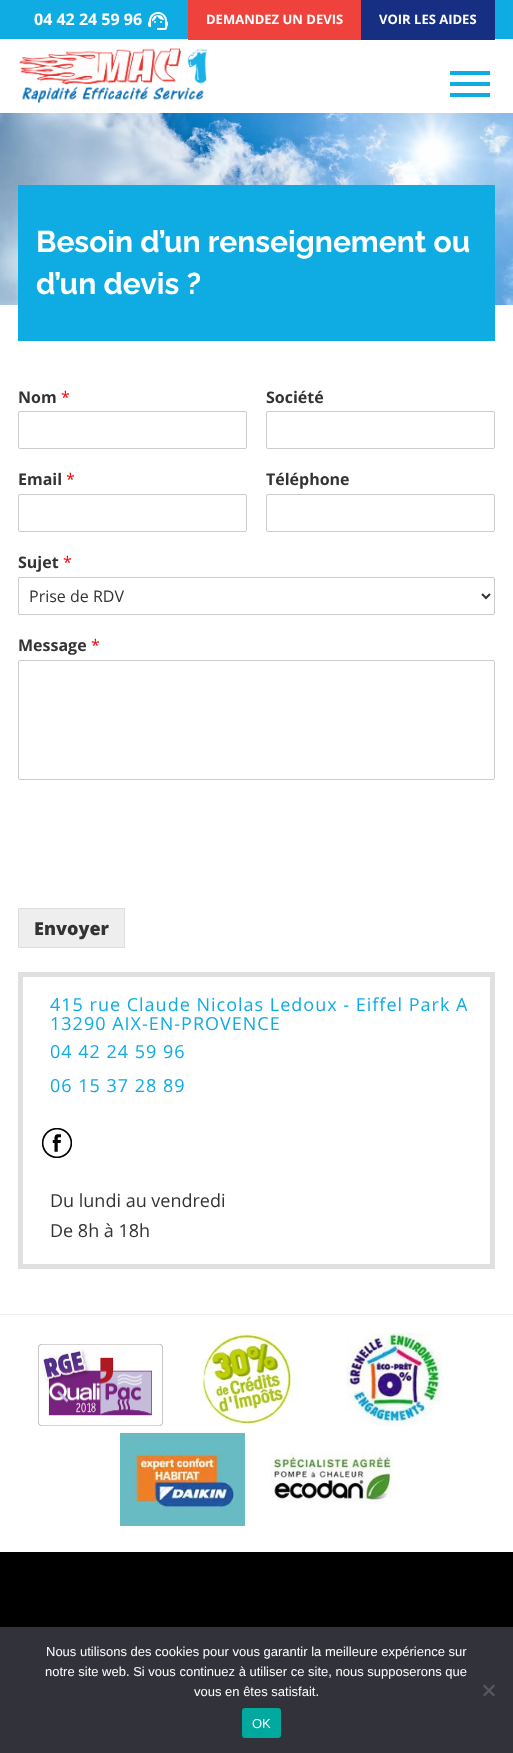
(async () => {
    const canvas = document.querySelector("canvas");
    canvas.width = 513;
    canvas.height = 1753;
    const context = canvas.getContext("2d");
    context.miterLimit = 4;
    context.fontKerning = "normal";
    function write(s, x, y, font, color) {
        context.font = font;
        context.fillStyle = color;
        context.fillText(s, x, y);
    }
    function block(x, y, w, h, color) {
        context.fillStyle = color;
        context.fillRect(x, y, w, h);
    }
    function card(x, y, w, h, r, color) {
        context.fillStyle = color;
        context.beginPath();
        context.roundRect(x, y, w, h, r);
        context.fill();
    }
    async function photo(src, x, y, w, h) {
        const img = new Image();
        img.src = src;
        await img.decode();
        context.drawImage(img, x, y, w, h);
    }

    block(0, 0, 513, 1753, "rgb(255, 255, 255)");
    block(0, 0, 513, 39, "rgb(15, 172, 227)");
    write("04 42 24 59 96", 34, 25, "bold 16px Open Sans", "rgb(255, 255, 255)");
    await photo("media/1.png", 148, 12, 20, 18);
    block(188, 0, 173, 40, "rgb(239, 66, 61)");
    write("DEMANDEZ UN DEVIS", 206, 24, "bold 13px Open Sans", "rgb(255, 255, 255)");
    block(361, 0, 134, 40, "rgb(22, 47, 131)");
    write("VOIR LES AIDES", 379, 24, "bold 13px Open Sans", "rgb(255, 255, 255)");
    await photo("media/2.png", 19, 48, 188, 56);
    block(450, 71, 40, 4, "rgb(15, 172, 227)");
    block(450, 82, 40, 4, "rgb(15, 172, 227)");
    block(450, 93, 40, 4, "rgb(15, 172, 227)");
    await photo("media/3.png", 0, 113, 513, 192);
    block(18, 185, 477, 156, "rgb(15, 172, 227)");
    write("Besoin d’un renseignement ou", 36, 252, "bold 30px Raleway", "rgb(255, 255, 255)");
    write("d’un devis ?", 36, 294, "bold 30px Raleway", "rgb(255, 255, 255)");
    write("Nom", 18, 403, "bold 16px Open Sans", "rgb(51, 51, 51)");
    write("*", 61, 403, "16px Open Sans", "rgb(255, 0, 0)");
    context.beginPath();
    context.roundRect(18.5, 411.5, 228, 37, 1.5);
    context.strokeStyle = "rgb(204, 204, 204)";
    context.stroke();
    write("Société", 266, 403, "bold 16px Open Sans", "rgb(51, 51, 51)");
    context.beginPath();
    context.roundRect(266.5, 411.5, 228, 37, 1.5);
    context.stroke();
    write("Email", 18, 485, "bold 16px Open Sans", "rgb(51, 51, 51)");
    write("*", 66, 485, "16px Open Sans", "rgb(255, 0, 0)");
    context.beginPath();
    context.roundRect(18.5, 494.5, 228, 37, 1.5);
    context.stroke();
    write("Téléphone", 266, 485, "bold 16px Open Sans", "rgb(51, 51, 51)");
    context.beginPath();
    context.roundRect(266.5, 494.5, 228, 37, 1.5);
    context.stroke();
    write("Sujet", 18, 568, "bold 16px Open Sans", "rgb(51, 51, 51)");
    write("*", 63, 568, "16px Open Sans", "rgb(255, 0, 0)");
    context.beginPath();
    context.roundRect(18.5, 577.5, 476, 37, 1.5);
    context.stroke();
    context.beginPath();
    context.moveTo(482, 594);
    context.lineTo(486, 598);
    context.lineTo(490, 594);
    context.strokeStyle = "rgb(51, 51, 51)";
    context.lineWidth = 2;
    context.stroke();
    write("Prise de RDV", 29, 602, "16px Open Sans", "rgb(51, 51, 51)");
    write("Message", 18, 651, "bold 16px Open Sans", "rgb(51, 51, 51)");
    write("*", 91, 651, "16px Open Sans", "rgb(255, 0, 0)");
    context.beginPath();
    context.roundRect(18.5, 660.5, 476, 119, 1.5);
    context.strokeStyle = "rgb(204, 204, 204)";
    context.lineWidth = 1;
    context.stroke();
    context.fillStyle = "rgb(238, 238, 238)";
    context.beginPath();
    context.rect(18.5, 908.5, 106, 39);
    context.fill();
    context.strokeStyle = "rgb(221, 221, 221)";
    context.stroke();
    write("Envoyer", 34, 935, "800 18px Open Sans", "rgb(51, 51, 51)");
    context.strokeStyle = "rgb(224, 224, 224)";
    context.lineWidth = 5;
    context.strokeRect(20.5, 974.5, 472, 292);
    context.letterSpacing = "1px";
    write("415 rue Claude Nicolas Ledoux - Eiffel Park A", 50, 1011, "18px Open Sans", "rgb(15, 172, 227)");
    write("13290 AIX-EN-PROVENCE", 50, 1030, "18px Open Sans", "rgb(15, 172, 227)");
    write("04 42 24 59 96", 50, 1058, "18px Open Sans", "rgb(15, 172, 227)");
    write("06 15 37 28 89", 50, 1092, "18px Open Sans", "rgb(15, 172, 227)");
    await photo("media/4.png", 41, 1128, 31, 30);
    context.letterSpacing = "0px";
    write("Du lundi au vendredi", 50, 1207, "18px Open Sans", "rgb(51, 51, 51)");
    write("De 8h à 18h", 50, 1237, "18px Open Sans", "rgb(51, 51, 51)");
    block(0, 1552, 513, 75, "rgb(0, 0, 0)");
    block(0, 1314, 513, 1, "rgb(238, 238, 238)");
    await photo("media/5.png", 38, 1344, 125, 82);
    await photo("media/6.png", 199, 1333, 96, 92);
    await photo("media/7.png", 346, 1333, 97, 93);
    await photo("media/8.png", 120, 1433, 125, 93);
    await photo("media/9.png", 270, 1452, 123, 52);
    block(0, 1627, 513, 126, "rgb(50, 50, 58)");
    write("Nous utilisons des cookies pour vous garantir la meilleure expérience sur", 46, 1656, "13px Liberation Sans", "rgb(255, 255, 255)");
    write("notre site web. Si vous continuez à utiliser ce site, nous supposerons que", 45, 1676, "13px Liberation Sans", "rgb(255, 255, 255)");
    write("vous en êtes satisfait.", 194, 1696, "13px Liberation Sans", "rgb(255, 255, 255)");
    context.fillStyle = "rgb(89, 89, 93)";
    context.beginPath();
    context.moveTo(493.5, 1684.5);
    context.lineTo(495, 1686);
    context.lineTo(484.5, 1696.5);
    context.lineTo(483, 1695);
    context.closePath();
    context.fill();
    context.beginPath();
    context.moveTo(483, 1686);
    context.lineTo(484.5, 1684.5);
    context.lineTo(495, 1695);
    context.lineTo(493.5, 1696.5);
    context.closePath();
    context.fill();
    card(242, 1708, 39, 30, 3, "rgb(0, 169, 157)");
    write("OK", 252, 1728, "13px Liberation Sans", "rgb(255, 255, 255)");
})();
